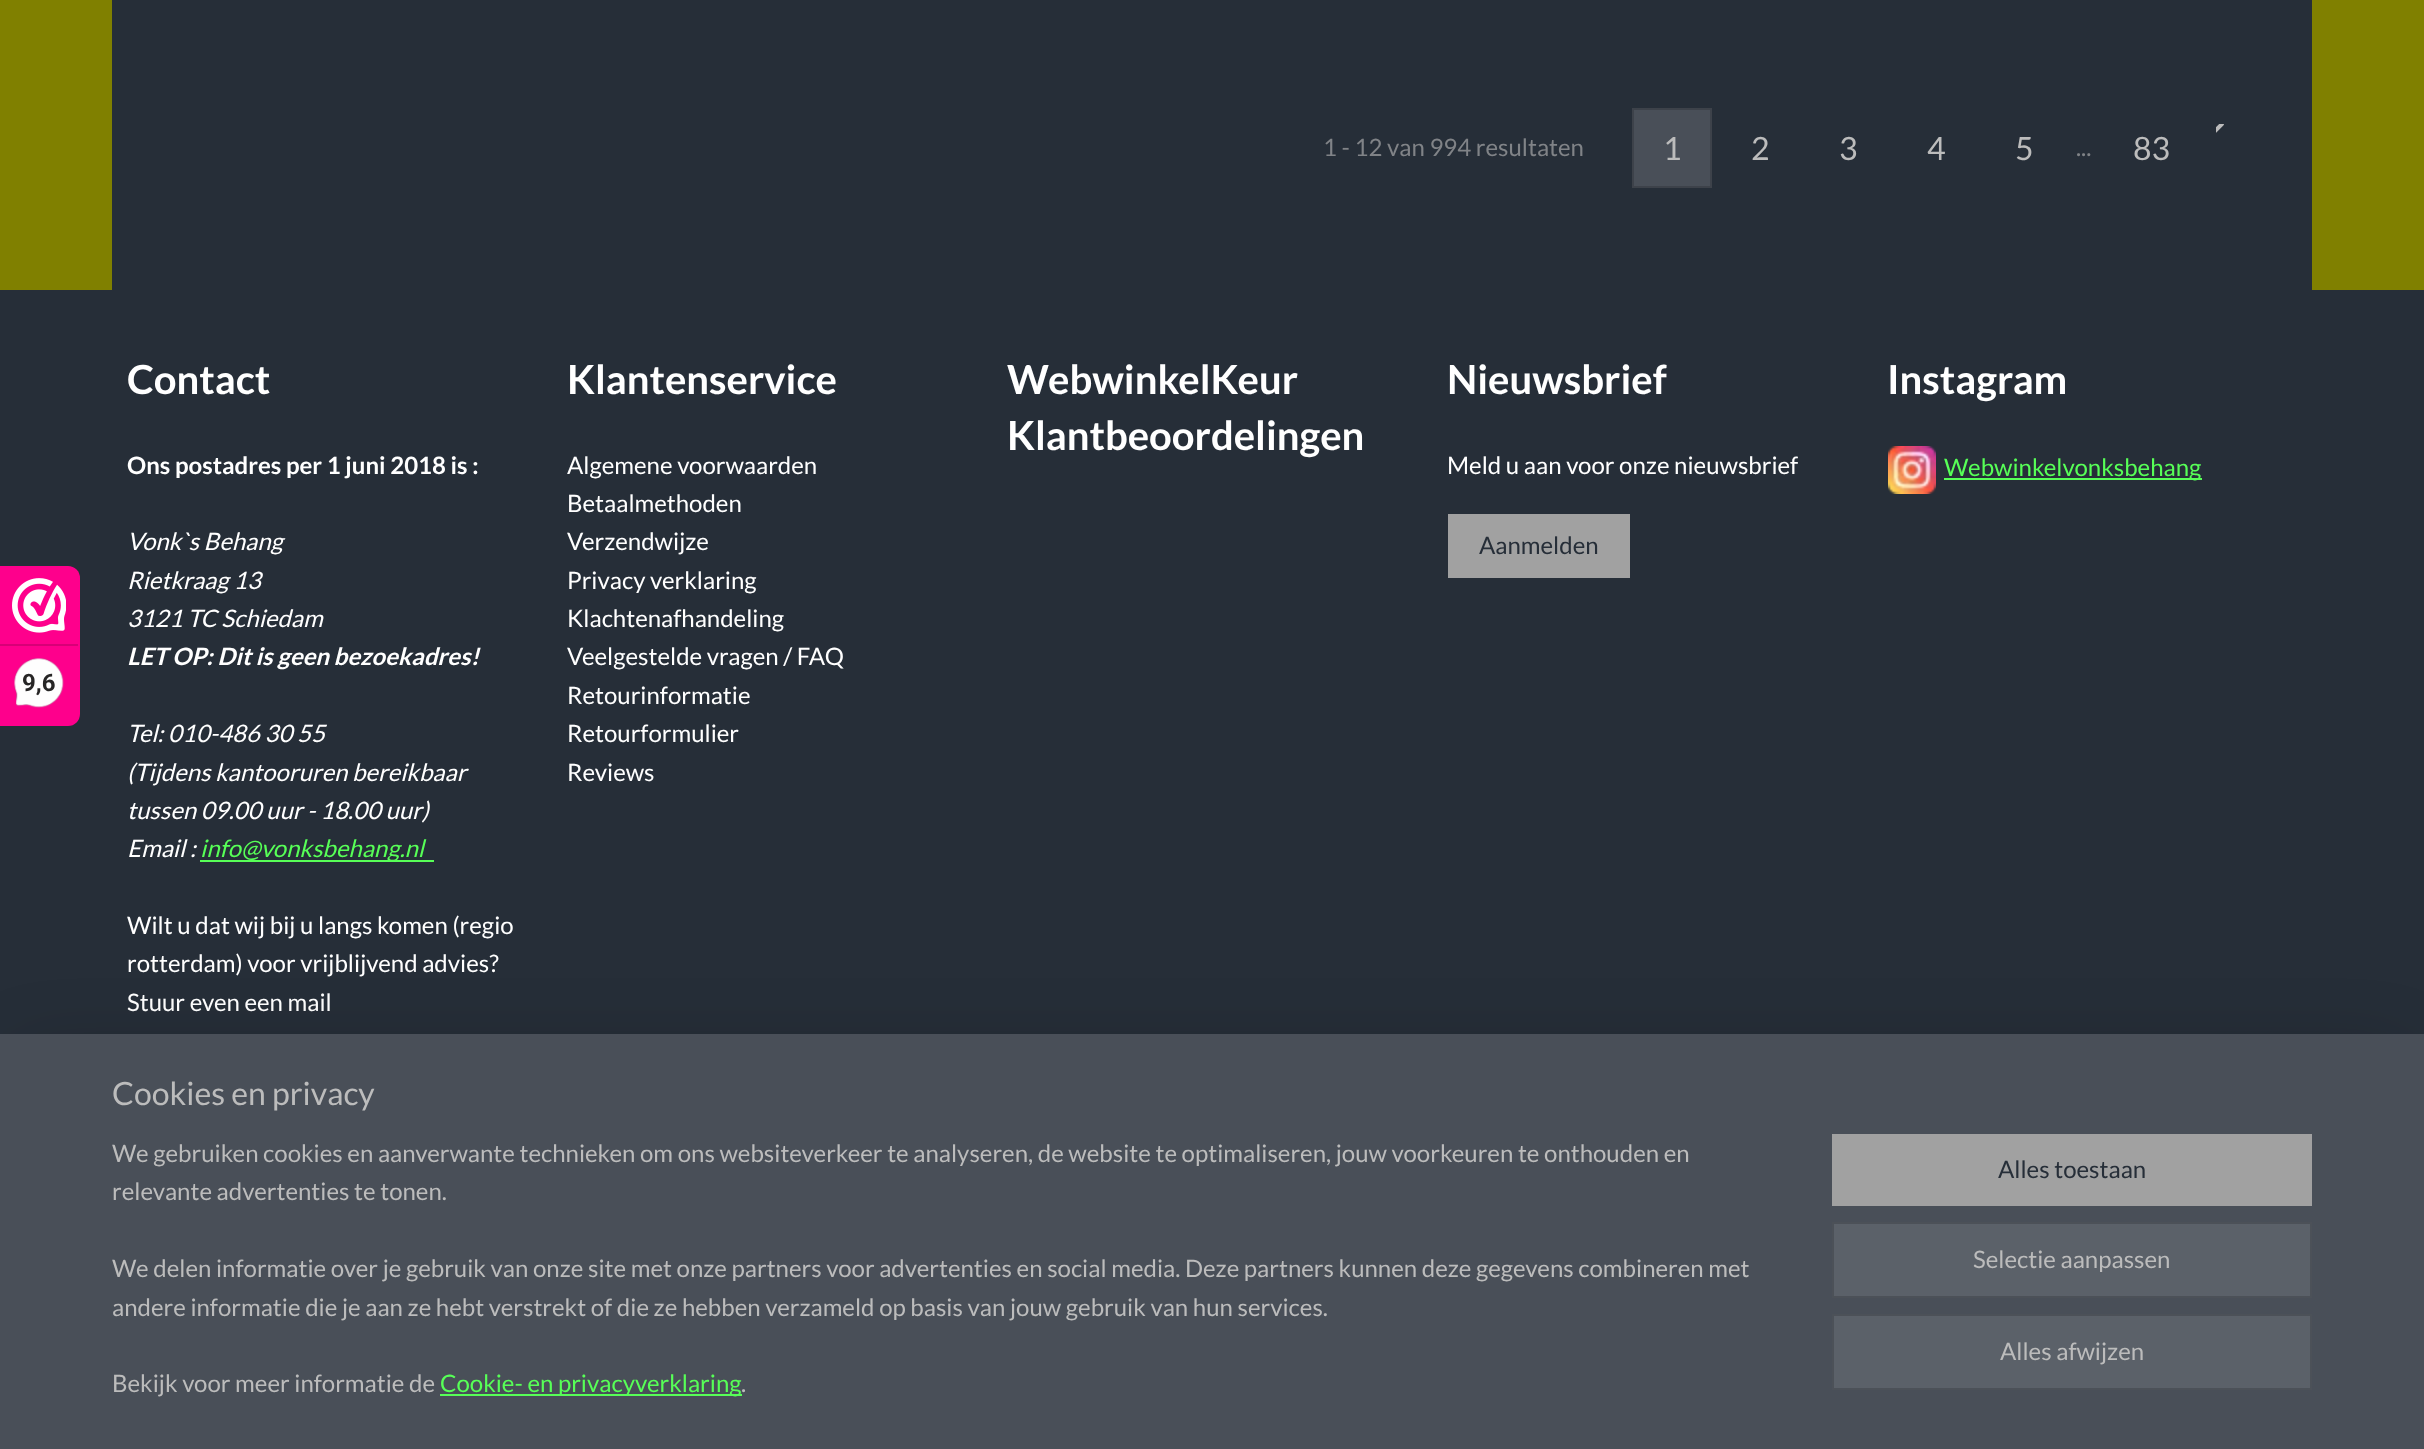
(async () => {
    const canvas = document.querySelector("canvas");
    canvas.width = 2424;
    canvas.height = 1449;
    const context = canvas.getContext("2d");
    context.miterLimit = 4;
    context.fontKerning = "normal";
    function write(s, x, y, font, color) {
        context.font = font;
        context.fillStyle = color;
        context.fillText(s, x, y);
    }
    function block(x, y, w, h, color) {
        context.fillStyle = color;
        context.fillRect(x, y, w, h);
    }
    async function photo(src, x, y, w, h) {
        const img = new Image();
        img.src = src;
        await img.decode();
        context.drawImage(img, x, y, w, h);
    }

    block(0, 0, 2424, 1449, "rgb(128, 128, 0)");
    block(0, 290, 2424, 744, "rgb(38, 46, 56)");
    context.fillStyle = "rgb(254, 0, 140)";
    context.beginPath();
    context.roundRect(0, 566, 80, 160, [0, 12, 12, 0]);
    context.fill();
    await photo("media/1.png", 12, 578, 54, 55);
    block(0, 644, 78, 2, "rgb(216, 0, 119)");
    await photo("media/2.png", 14, 658, 50, 50);
    write("9,6", 22, 691, "bold 24px Roboto", "rgb(39, 38, 38)");
    block(112, 0, 2200, 290, "rgb(38, 46, 56)");
    write("1 - 12 van 994 resultaten", 1323, 156, "24px Lato", "rgb(128, 131, 135)");
    await photo("media/3.png", 2216, 124, 8, 9);
    context.fillStyle = "rgb(73, 79, 88)";
    context.beginPath();
    context.rect(1633, 109, 78, 78);
    context.fill();
    context.strokeStyle = "rgb(61, 66, 74)";
    context.lineWidth = 2;
    context.stroke();
    write("1", 1663, 160, "32px Lato", "rgb(188, 188, 188)");
    write("2", 1751, 160, "32px Lato", "rgb(188, 188, 188)");
    write("3", 1839, 160, "32px Lato", "rgb(188, 188, 188)");
    write("4", 1927, 160, "32px Lato", "rgb(188, 188, 188)");
    write("5", 2015, 160, "32px Lato", "rgb(188, 188, 188)");
    write("...", 2076, 156, "24px Lato", "rgb(128, 131, 135)");
    write("83", 2133, 160, "32px Lato", "rgb(188, 188, 188)");
    write("Contact", 127, 394, "bold 40px Lato", "rgb(255, 255, 255)");
    write("Ons postadres per 1 juni 2018 is :", 127, 474, "bold 24px Lato", "rgb(255, 255, 255)");
    write("Vonk`s Behang", 127, 550, "italic 24px Lato", "rgb(255, 255, 255)");
    write("Rietkraag 13", 127, 589, "italic 24px Lato", "rgb(255, 255, 255)");
    write("3121 TC Schiedam", 127, 627, "italic 24px Lato", "rgb(255, 255, 255)");
    write("LET OP: Dit is geen bezoekadres!", 127, 665, "italic bold 24px Lato", "rgb(255, 255, 255)");
    write("Tel: 010-486 30 55", 127, 742, "italic 24px Lato", "rgb(255, 255, 255)");
    write("(Tijdens kantooruren bereikbaar", 127, 781, "italic 24px Lato", "rgb(255, 255, 255)");
    write("tussen 09.00 uur - 18.00 uur)", 127, 819, "italic 24px Lato", "rgb(255, 255, 255)");
    write("Email :", 127, 857, "italic 24px Lato", "rgb(255, 255, 255)");
    block(200, 860, 234, 2, "rgb(87, 255, 87)");
    write("info@vonksbehang.nl", 200, 857, "italic 24px Lato", "rgb(87, 255, 87)");
    write("Wilt u dat wij bij u langs komen (regio", 127, 934, "24px Lato", "rgb(255, 255, 255)");
    write("rotterdam) voor vrijblijvend advies?", 127, 972, "24px Lato", "rgb(255, 255, 255)");
    write("Stuur even een mail", 127, 1011, "24px Lato", "rgb(255, 255, 255)");
    write("Klantenservice", 567, 394, "bold 40px Lato", "rgb(255, 255, 255)");
    write("Algemene voorwaarden", 567, 474, "24px Lato", "rgb(255, 255, 255)");
    write("Betaalmethoden", 567, 512, "24px Lato", "rgb(255, 255, 255)");
    write("Verzendwijze", 567, 550, "24px Lato", "rgb(255, 255, 255)");
    write("Privacy verklaring", 567, 589, "24px Lato", "rgb(255, 255, 255)");
    write("Klachtenafhandeling", 567, 627, "24px Lato", "rgb(255, 255, 255)");
    write("Veelgestelde vragen / FAQ", 567, 665, "24px Lato", "rgb(255, 255, 255)");
    write("Retourinformatie", 567, 704, "24px Lato", "rgb(255, 255, 255)");
    write("Retourformulier", 567, 742, "24px Lato", "rgb(255, 255, 255)");
    write("Reviews", 567, 781, "24px Lato", "rgb(255, 255, 255)");
    write("WebwinkelKeur", 1007, 394, "bold 40px Lato", "rgb(255, 255, 255)");
    write("Klantbeoordelingen", 1007, 450, "bold 40px Lato", "rgb(255, 255, 255)");
    write("Nieuwsbrief", 1447, 394, "bold 40px Lato", "rgb(255, 255, 255)");
    write("Meld u aan voor onze nieuwsbrief", 1447, 474, "24px Lato", "rgb(255, 255, 255)");
    block(1448, 514, 182, 64, "rgb(161, 161, 161)");
    write("Aanmelden", 1479, 554, "24px Lato", "rgb(38, 46, 56)");
    write("Instagram", 1887, 394, "bold 40px Lato", "rgb(255, 255, 255)");
    await photo("media/4.png", 1888, 446, 48, 48);
    block(1944, 478, 258, 2, "rgb(87, 255, 87)");
    write("Webwinkelvonksbehang", 1944, 476, "24px Lato", "rgb(87, 255, 87)");
    context.fillStyle = "rgba(0, 0, 0, 0.2)";
    context.filter = "blur(36px)";
    context.beginPath();
    context.rect(20, 1054, 2384, 376);
    context.fill();
    context.filter = "none";
    block(0, 1034, 2424, 415, "rgb(73, 79, 88)");
    write("Cookies en privacy", 112, 1105, "32px Lato", "rgb(188, 188, 188)");
    write("We gebruiken cookies en aanverwante technieken om ons websiteverkeer te analyseren, de website te optimaliseren, jouw voorkeuren te onthouden en", 112, 1162, "24px Lato", "rgb(188, 188, 188)");
    write("relevante advertenties te tonen.", 112, 1200, "24px Lato", "rgb(188, 188, 188)");
    write("We delen informatie over je gebruik van onze site met onze partners voor advertenties en social media. Deze partners kunnen deze gegevens combineren met", 112, 1277, "24px Lato", "rgb(188, 188, 188)");
    write("andere informatie die je aan ze hebt verstrekt of die ze hebben verzameld op basis van jouw gebruik van hun services.", 112, 1316, "24px Lato", "rgb(188, 188, 188)");
    write("Bekijk voor meer informatie de", 112, 1392, "24px Lato", "rgb(188, 188, 188)");
    block(440, 1394, 302, 2, "rgb(87, 255, 87)");
    write("Cookie- en privacyverklaring", 440, 1392, "24px Lato", "rgb(87, 255, 87)");
    write(".", 741, 1392, "24px Lato", "rgb(188, 188, 188)");
    block(1832, 1134, 480, 72, "rgb(161, 161, 161)");
    write("Alles toestaan", 1998, 1178, "24px Lato", "rgb(38, 46, 56)");
    context.fillStyle = "rgb(91, 97, 105)";
    context.beginPath();
    context.rect(1833, 1223, 478, 74);
    context.fill();
    context.strokeStyle = "rgb(76, 81, 88)";
    context.stroke();
    write("Selectie aanpassen", 1973, 1268, "24px Lato", "rgb(188, 188, 188)");
    context.fillStyle = "rgb(91, 97, 105)";
    context.beginPath();
    context.rect(1833, 1315, 478, 74);
    context.fill();
    context.stroke();
    write("Alles afwijzen", 2000, 1360, "24px Lato", "rgb(188, 188, 188)");
})();
